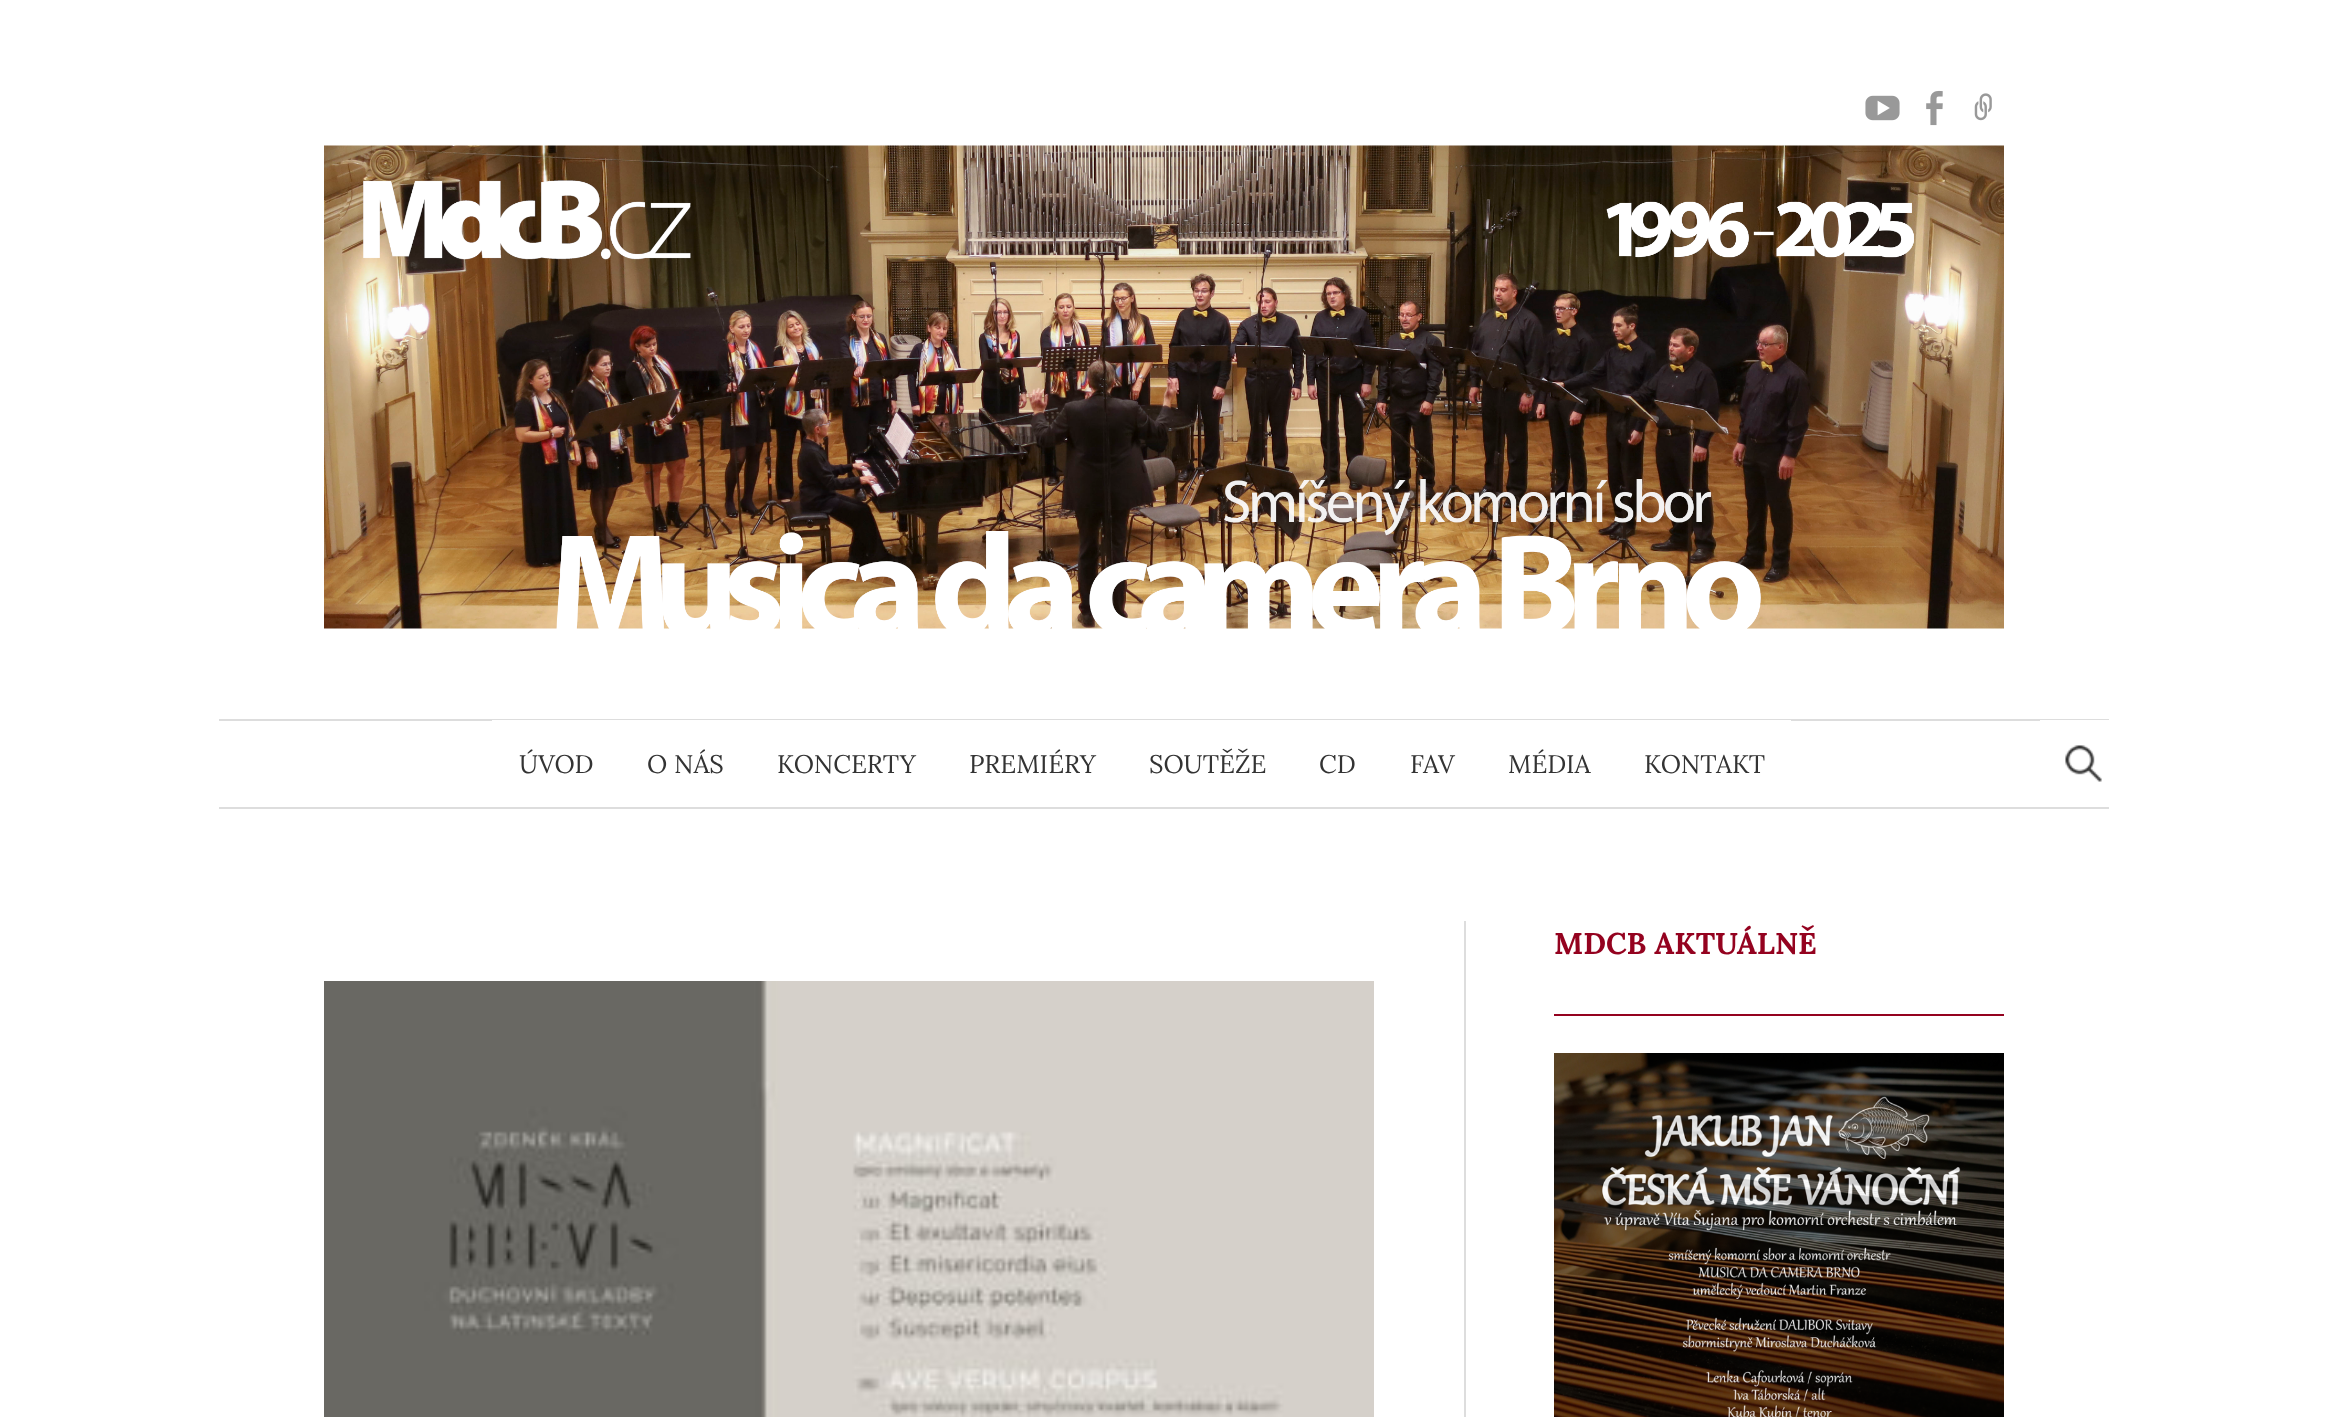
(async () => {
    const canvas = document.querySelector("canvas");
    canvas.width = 2328;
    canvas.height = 1417;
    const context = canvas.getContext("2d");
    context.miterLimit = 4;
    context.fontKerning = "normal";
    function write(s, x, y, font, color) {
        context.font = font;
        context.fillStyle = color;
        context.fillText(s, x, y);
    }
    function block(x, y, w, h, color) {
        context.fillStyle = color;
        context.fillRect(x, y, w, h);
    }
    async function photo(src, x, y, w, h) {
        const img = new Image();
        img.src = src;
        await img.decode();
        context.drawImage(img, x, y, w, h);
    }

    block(0, 0, 2328, 1417, "rgb(255, 255, 255)");
    await photo("media/1.png", 1865, 95, 35, 26);
    await photo("media/2.png", 1926, 90, 17, 36);
    await photo("media/3.png", 1974, 93, 18, 28);
    await photo("media/4.png", 324, 145, 1680, 484);
    block(219, 719, 1890, 2, "rgb(221, 221, 221)");
    block(219, 807, 1890, 2, "rgb(221, 221, 221)");
    block(492, 720, 1299, 1, "rgb(255, 255, 255)");
    write("ÚVOD", 519, 773, "25.5px Lora", "rgb(51, 51, 51)");
    write("O NÁS", 647, 773, "25.5px Lora", "rgb(51, 51, 51)");
    write("KONCERTY", 777, 773, "25.5px Lora", "rgb(51, 51, 51)");
    write("PREMIÉRY", 969, 773, "25.5px Lora", "rgb(51, 51, 51)");
    write("SOUTĚŽE", 1149, 773, "25.5px Lora", "rgb(51, 51, 51)");
    write("CD", 1319, 773, "25.5px Lora", "rgb(51, 51, 51)");
    write("FAV", 1410, 773, "25.5px Lora", "rgb(51, 51, 51)");
    write("MÉDIA", 1508, 773, "25.5px Lora", "rgb(51, 51, 51)");
    write("KONTAKT", 1644, 773, "25.5px Lora", "rgb(51, 51, 51)");
    block(2040, 720, 69, 1, "rgb(255, 255, 255)");
    await photo("media/5.png", 2065, 745, 37, 37);
    block(1464, 921, 2, 496, "rgb(221, 221, 221)");
    await photo("media/6.png", 324, 981, 1050, 436);
    write("MDCB AKTUÁLNĚ", 1554, 954, "bold 30px Lora", "rgb(148, 2, 31)");
    block(1554, 1014, 450, 2, "rgb(148, 2, 31)");
    await photo("media/7.png", 1554, 1053, 450, 364);
})();
